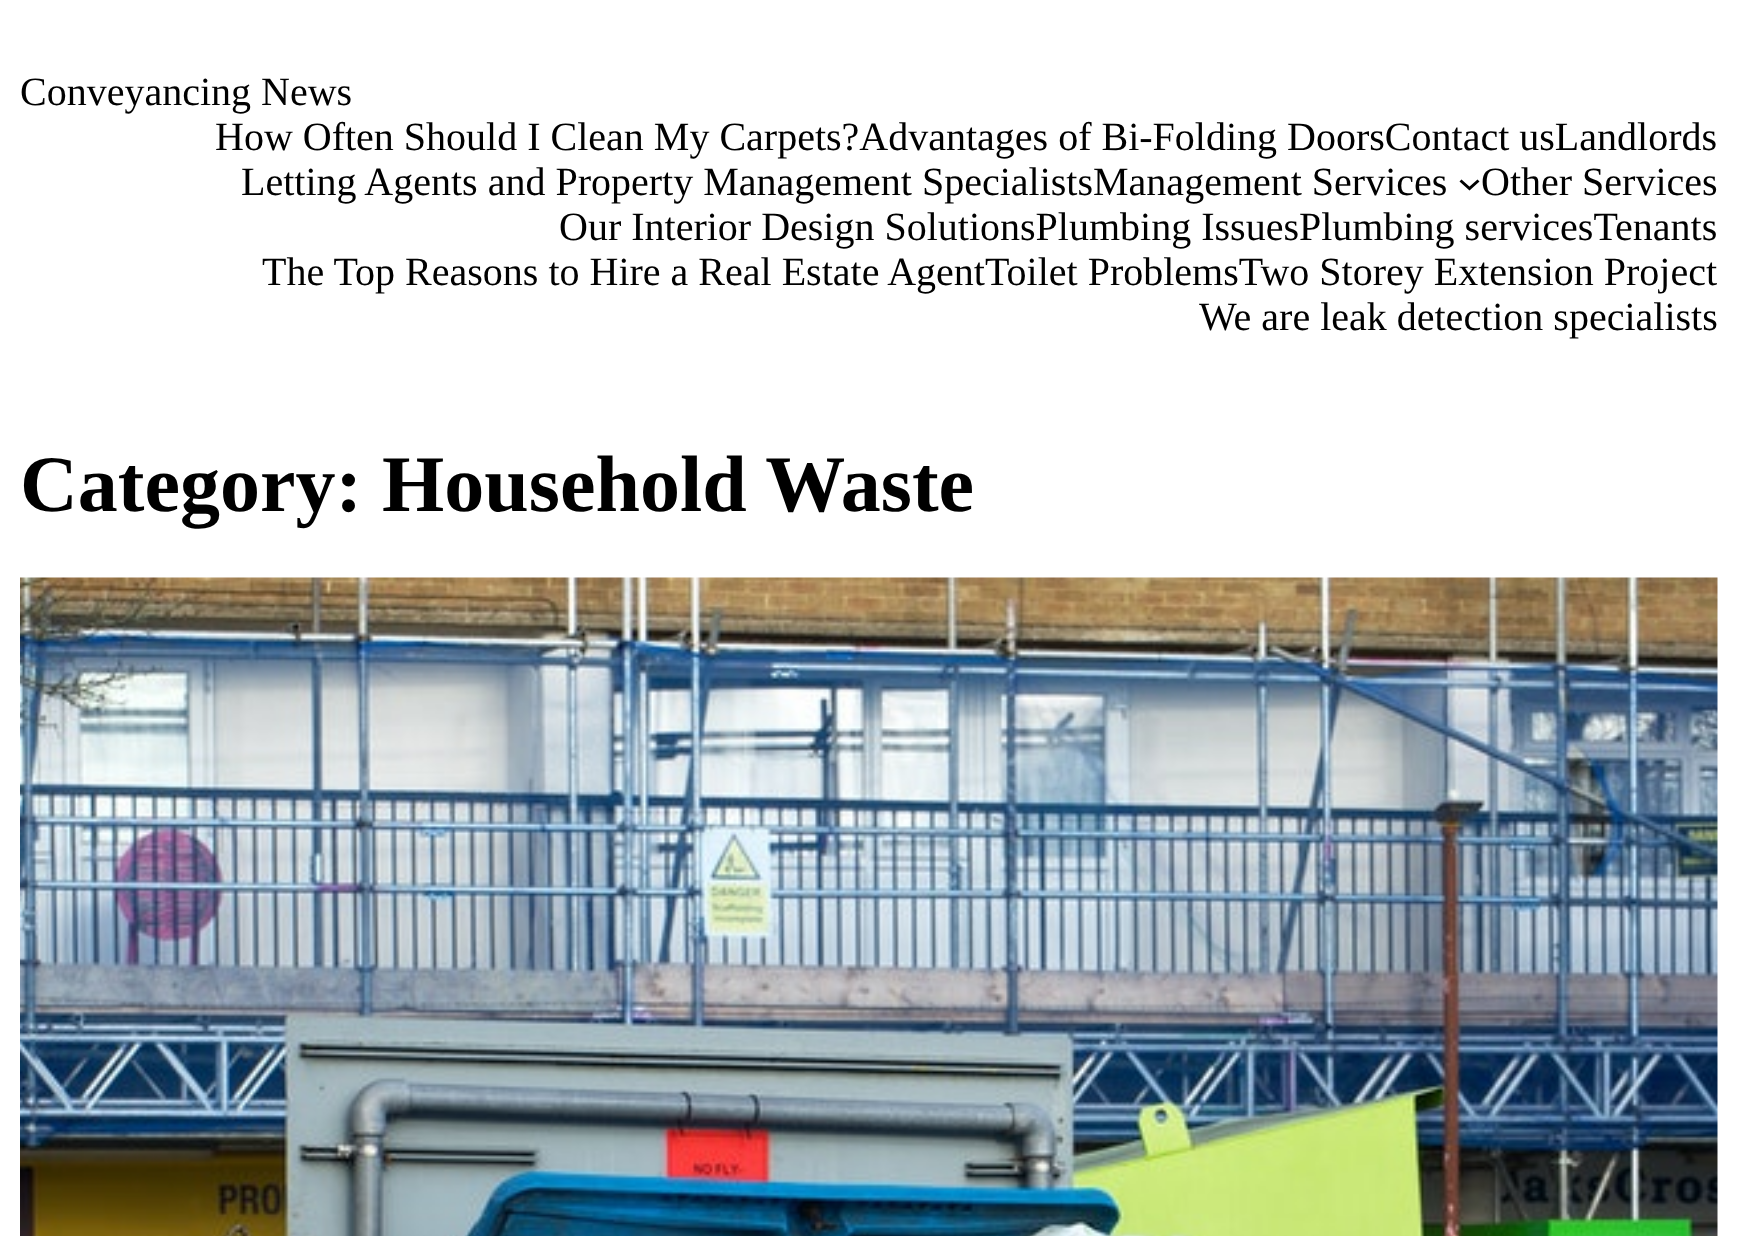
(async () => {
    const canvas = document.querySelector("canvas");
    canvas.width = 1737;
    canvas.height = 1236;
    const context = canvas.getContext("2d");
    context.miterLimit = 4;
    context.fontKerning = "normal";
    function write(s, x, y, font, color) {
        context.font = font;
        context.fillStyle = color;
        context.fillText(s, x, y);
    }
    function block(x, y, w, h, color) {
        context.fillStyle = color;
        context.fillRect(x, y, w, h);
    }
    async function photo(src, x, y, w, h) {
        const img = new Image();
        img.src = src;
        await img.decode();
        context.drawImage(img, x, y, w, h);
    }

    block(0, 0, 1737, 1236, "rgb(255, 255, 255)");
    write("Conveyancing News", 20, 105, "40px Liberation Serif", "rgb(0, 0, 0)");
    write("How Often Should I Clean My Carpets?Advantages of Bi-Folding DoorsContact usLandlords", 215, 150, "40px Liberation Serif", "rgb(0, 0, 0)");
    write("Letting Agents and Property Management SpecialistsManagement Services", 241, 195, "40px Liberation Serif", "rgb(0, 0, 0)");
    context.beginPath();
    context.moveTo(1460.5, 180.5);
    context.lineTo(1469.5, 188.5);
    context.lineTo(1478.5, 180.5);
    context.strokeStyle = "rgb(0, 0, 0)";
    context.lineWidth = 3;
    context.stroke();
    write("Other Services", 1481, 195, "40px Liberation Serif", "rgb(0, 0, 0)");
    write("Our Interior Design SolutionsPlumbing IssuesPlumbing servicesTenants", 559, 240, "40px Liberation Serif", "rgb(0, 0, 0)");
    write("The Top Reasons to Hire a Real Estate AgentToilet ProblemsTwo Storey Extension Project", 262, 285, "40px Liberation Serif", "rgb(0, 0, 0)");
    write("We are leak detection specialists", 1199, 330, "40px Liberation Serif", "rgb(0, 0, 0)");
    write("Category: Household Waste", 20, 511, "bold 80px Liberation Serif", "rgb(0, 0, 0)");
    await photo("media/1.png", 20, 577, 1698, 659);
})();
